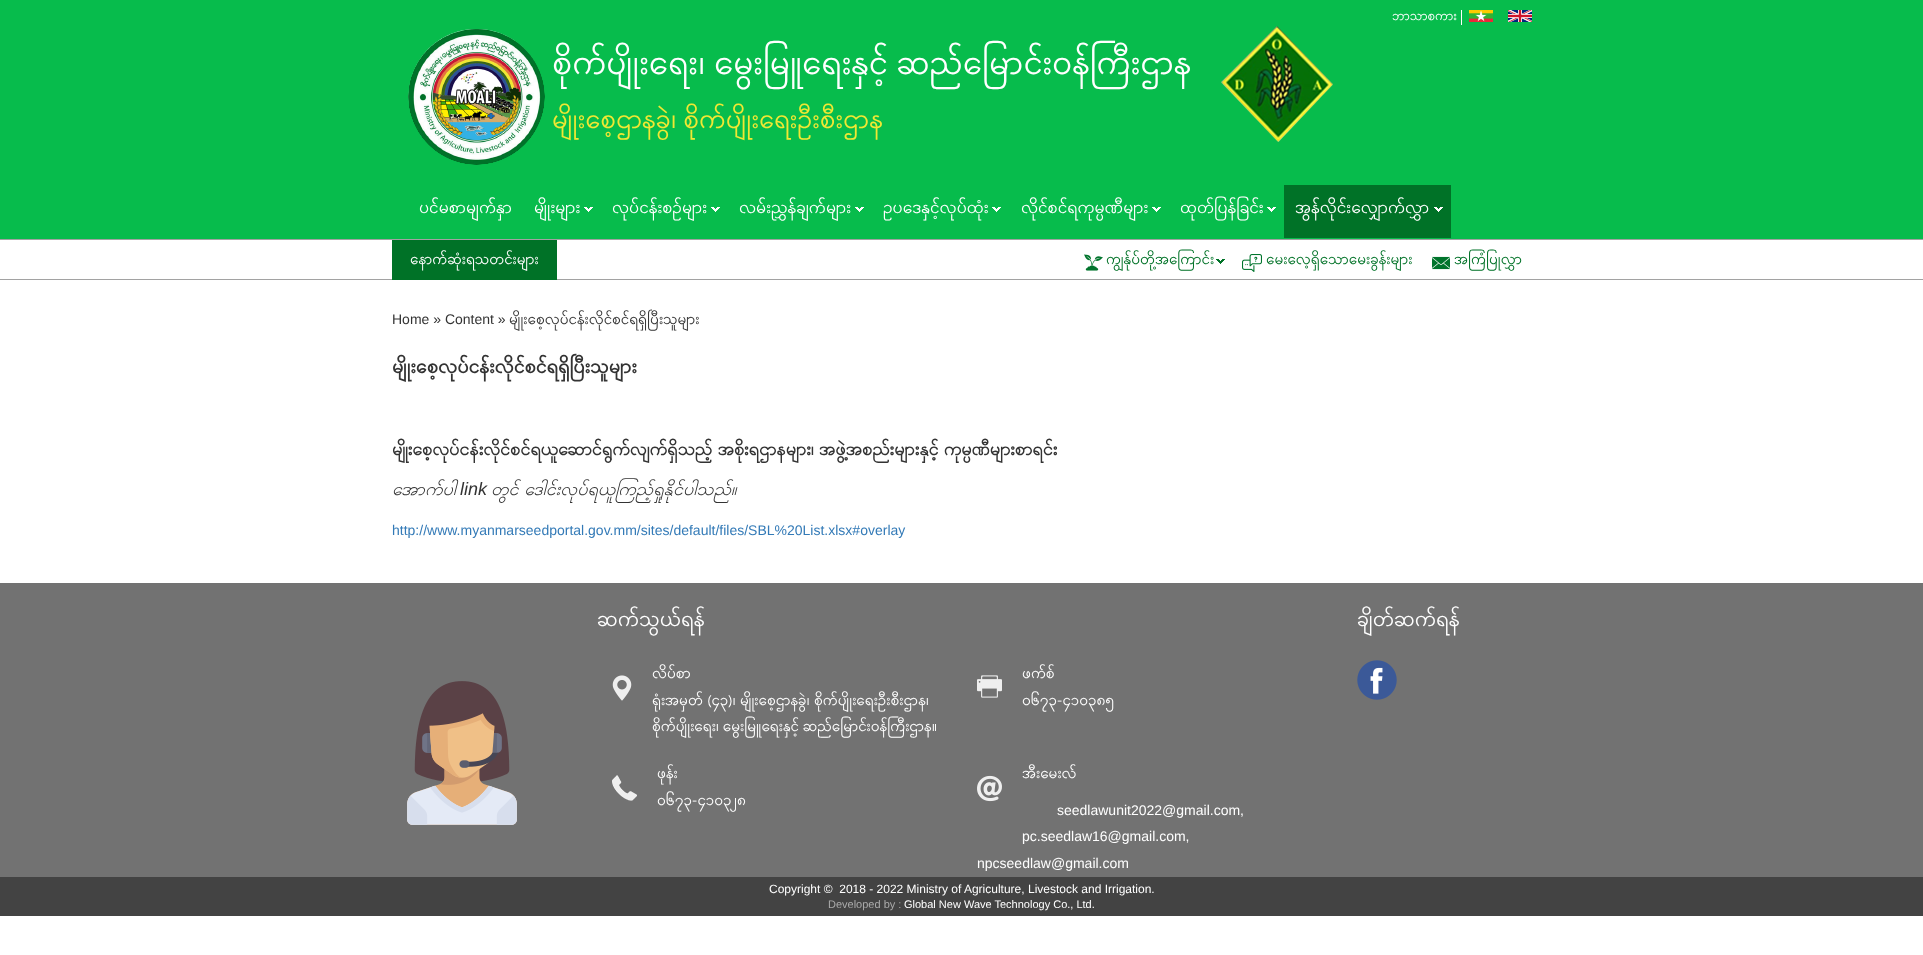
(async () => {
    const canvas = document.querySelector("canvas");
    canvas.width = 1923;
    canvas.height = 955;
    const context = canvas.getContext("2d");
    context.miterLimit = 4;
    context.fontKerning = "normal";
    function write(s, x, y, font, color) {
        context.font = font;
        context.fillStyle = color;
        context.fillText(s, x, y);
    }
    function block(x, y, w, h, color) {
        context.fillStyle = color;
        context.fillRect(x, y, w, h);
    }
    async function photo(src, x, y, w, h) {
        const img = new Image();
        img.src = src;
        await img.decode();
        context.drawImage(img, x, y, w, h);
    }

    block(0, 0, 1923, 955, "rgb(255, 255, 255)");
    block(0, 0, 1923, 239, "rgb(7, 188, 76)");
    block(1461, 10, 1, 15, "rgb(255, 255, 255)");
    write("ဘာသာစကား", 1392, 20, "12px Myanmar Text", "rgb(255, 255, 255)");
    await photo("media/1.png", 1469, 10, 24, 12);
    await photo("media/2.png", 1508, 10, 24, 12);
    await photo("media/3.png", 408, 29, 137, 136);
    write("စိုက်ပျိုးရေး၊ မွေးမြူရေးနှင့် ဆည်မြောင်း၀န်ကြီးဌာန", 552, 74, "32px Myanmar Text", "rgb(255, 255, 255)");
    write("မျိုးစေ့ဌာနခွဲ၊ စိုက်ပျိုးရေးဦးစီးဌာန", 552, 128, "25px Myanmar Text", "rgb(241, 232, 51)");
    await photo("media/4.png", 1221, 26, 112, 116);
    write("ပင်မစာမျက်နှာ", 419, 213, "16px Myanmar Text", "rgb(255, 255, 255)");
    write("မျိုးများ", 534, 213, "16px Myanmar Text", "rgb(255, 255, 255)");
    await photo("media/5.png", 584, 207, 9, 5);
    write("လုပ်ငန်းစဥ်များ", 612, 213, "16px Myanmar Text", "rgb(255, 255, 255)");
    await photo("media/5.png", 711, 207, 9, 5);
    write("လမ်းညွှန်ချက်များ", 739, 213, "16px Myanmar Text", "rgb(255, 255, 255)");
    await photo("media/5.png", 855, 207, 9, 5);
    write("ဥပဒေနှင့်လုပ်ထုံး", 883, 213, "16px Myanmar Text", "rgb(255, 255, 255)");
    await photo("media/5.png", 992, 207, 9, 5);
    write("လိုင်စင်ရကုမ္ပဏီများ", 1021, 213, "16px Myanmar Text", "rgb(255, 255, 255)");
    await photo("media/5.png", 1152, 207, 9, 5);
    write("ထုတ်ပြန်ခြင်း", 1180, 213, "16px Myanmar Text", "rgb(255, 255, 255)");
    await photo("media/5.png", 1267, 207, 9, 5);
    block(1284, 185, 167, 53, "rgb(0, 114, 39)");
    write("အွန်လိုင်းလျှောက်လွှာ", 1295, 213, "16px Myanmar Text", "rgb(255, 255, 255)");
    await photo("media/6.png", 1434, 207, 9, 5);
    block(0, 239, 1923, 1, "rgb(162, 162, 162)");
    block(0, 279, 1923, 1, "rgb(162, 162, 162)");
    block(392, 240, 165, 40, "rgb(0, 114, 39)");
    write("နောက်ဆုံးရသတင်းများ", 410, 264, "14px Myanmar Text", "rgb(255, 255, 255)");
    await photo("media/7.png", 1084, 254, 19, 17);
    write("ကျွန်ုပ်တို့အကြောင်း", 1106, 264, "14px Myanmar Text", "rgb(0, 114, 39)");
    await photo("media/8.png", 1216, 259, 9, 5);
    await photo("media/9.png", 1242, 254, 20, 18);
    write("မေးလေ့ရှိသောမေးခွန်းများ", 1266, 264, "14px Myanmar Text", "rgb(0, 114, 39)");
    await photo("media/10.png", 1432, 256, 18, 14);
    write("အကြံပြုလွှာ", 1454, 264, "14px Myanmar Text", "rgb(0, 114, 39)");
    write("Home » Content »", 392, 324, "14px Liberation Sans", "rgb(51, 51, 51)");
    write("မျိုးစေ့လုပ်ငန်းလိုင်စင်ရရှိပြီးသူများ", 509, 324, "14px Myanmar Text", "rgb(51, 51, 51)");
    write("မျိုးစေ့လုပ်ငန်းလိုင်စင်ရရှိပြီးသူများ", 392, 373, "bold 18px Myanmar Text", "rgb(51, 51, 51)");
    context.wordSpacing = "-1.5px";
    write("မျိုးစေ့လုပ်ငန်းလိုင်စင်ရယူဆောင်ရွက်လျက်ရှိသည့် အစိုးရဌာနများ၊ အဖွဲ့အစည်းများနှင့် ကုမ္ပဏီများစာရင်း", 392, 455, "bold 18px Padauk", "rgb(51, 51, 51)");
    context.wordSpacing = "0px";
    write("အောက်ပါ", 392, 495, "italic 18px Padauk", "rgb(51, 51, 51)");
    write("link", 460, 495, "italic 18px Liberation Sans", "rgb(51, 51, 51)");
    context.wordSpacing = "-1px";
    write("တွင် ဒေါင်းလုပ်ရယူကြည့်ရှုနိုင်ပါသည်။", 491, 495, "italic 18px Padauk", "rgb(51, 51, 51)");
    context.wordSpacing = "0px";
    write("http://www.myanmarseedportal.gov.mm/sites/default/files/SBL%20List.xlsx#overlay", 392, 535, "14px Liberation Sans", "rgb(51, 122, 183)");
    block(0, 583, 1923, 294, "rgb(114, 114, 114)");
    write("ဆက်သွယ်ရန်", 597, 626, "20px Myanmar Text", "rgb(255, 255, 255)");
    await photo("media/11.png", 612, 675, 20, 26);
    write("လိပ်စာ", 652, 678, "14px Myanmar Text", "rgb(255, 255, 255)");
    context.wordSpacing = "0.5px";
    write("ရုံးအမှတ် (၄၃)၊ မျိုးစေ့ဌာနခွဲ၊ စိုက်ပျိုးရေးဦးစီးဌာန၊", 652, 705, "14px Myanmar Text", "rgb(255, 255, 255)");
    context.wordSpacing = "0px";
    write("စိုက်ပျိုးရေး၊ မွေးမြူရေးနှင့် ဆည်မြောင်း၀န်ကြီးဌာန။", 652, 731, "14px Myanmar Text", "rgb(255, 255, 255)");
    await photo("media/12.png", 612, 775, 25, 26);
    write("ဖုန်း", 657, 778, "14px Myanmar Text", "rgb(255, 255, 255)");
    write("၀၆၇၃-၄၁၀၃၂၈", 657, 805, "14px Myanmar Text", "rgb(255, 255, 255)");
    await photo("media/13.png", 977, 675, 25, 23);
    write("ဖက်စ်", 1022, 678, "14px Myanmar Text", "rgb(255, 255, 255)");
    write("၀၆၇၃-၄၁၀၃၈၅", 1022, 705, "14px Myanmar Text", "rgb(255, 255, 255)");
    write("အီးမေးလ်", 1022, 778, "14px Myanmar Text", "rgb(255, 255, 255)");
    await photo("media/14.png", 977, 775, 25, 27);
    write("seedlawunit2022@gmail.com,", 1057, 815, "14px Liberation Sans", "rgb(255, 255, 255)");
    write("pc.seedlaw16@gmail.com,", 1022, 841, "14px Liberation Sans", "rgb(255, 255, 255)");
    write("npcseedlaw@gmail.com", 977, 868, "14px Liberation Sans", "rgb(255, 255, 255)");
    write("ချိတ်ဆက်ရန်", 1357, 626, "20px Myanmar Text", "rgb(255, 255, 255)");
    await photo("media/15.png", 1357, 660, 40, 40);
    await photo("media/16.png", 407, 681, 110, 144);
    block(0, 877, 1923, 39, "rgb(67, 67, 67)");
    write("Copyright ©  2018 - 2022 Ministry of Agriculture, Livestock and Irrigation.", 769, 893, "12px Liberation Sans", "rgb(255, 255, 255)");
    write("Developed by :", 828, 908, "11px Liberation Sans", "rgb(171, 171, 171)");
    write("Global New Wave Technology Co., Ltd.", 904, 908, "11px Liberation Sans", "rgb(255, 255, 255)");
})();
